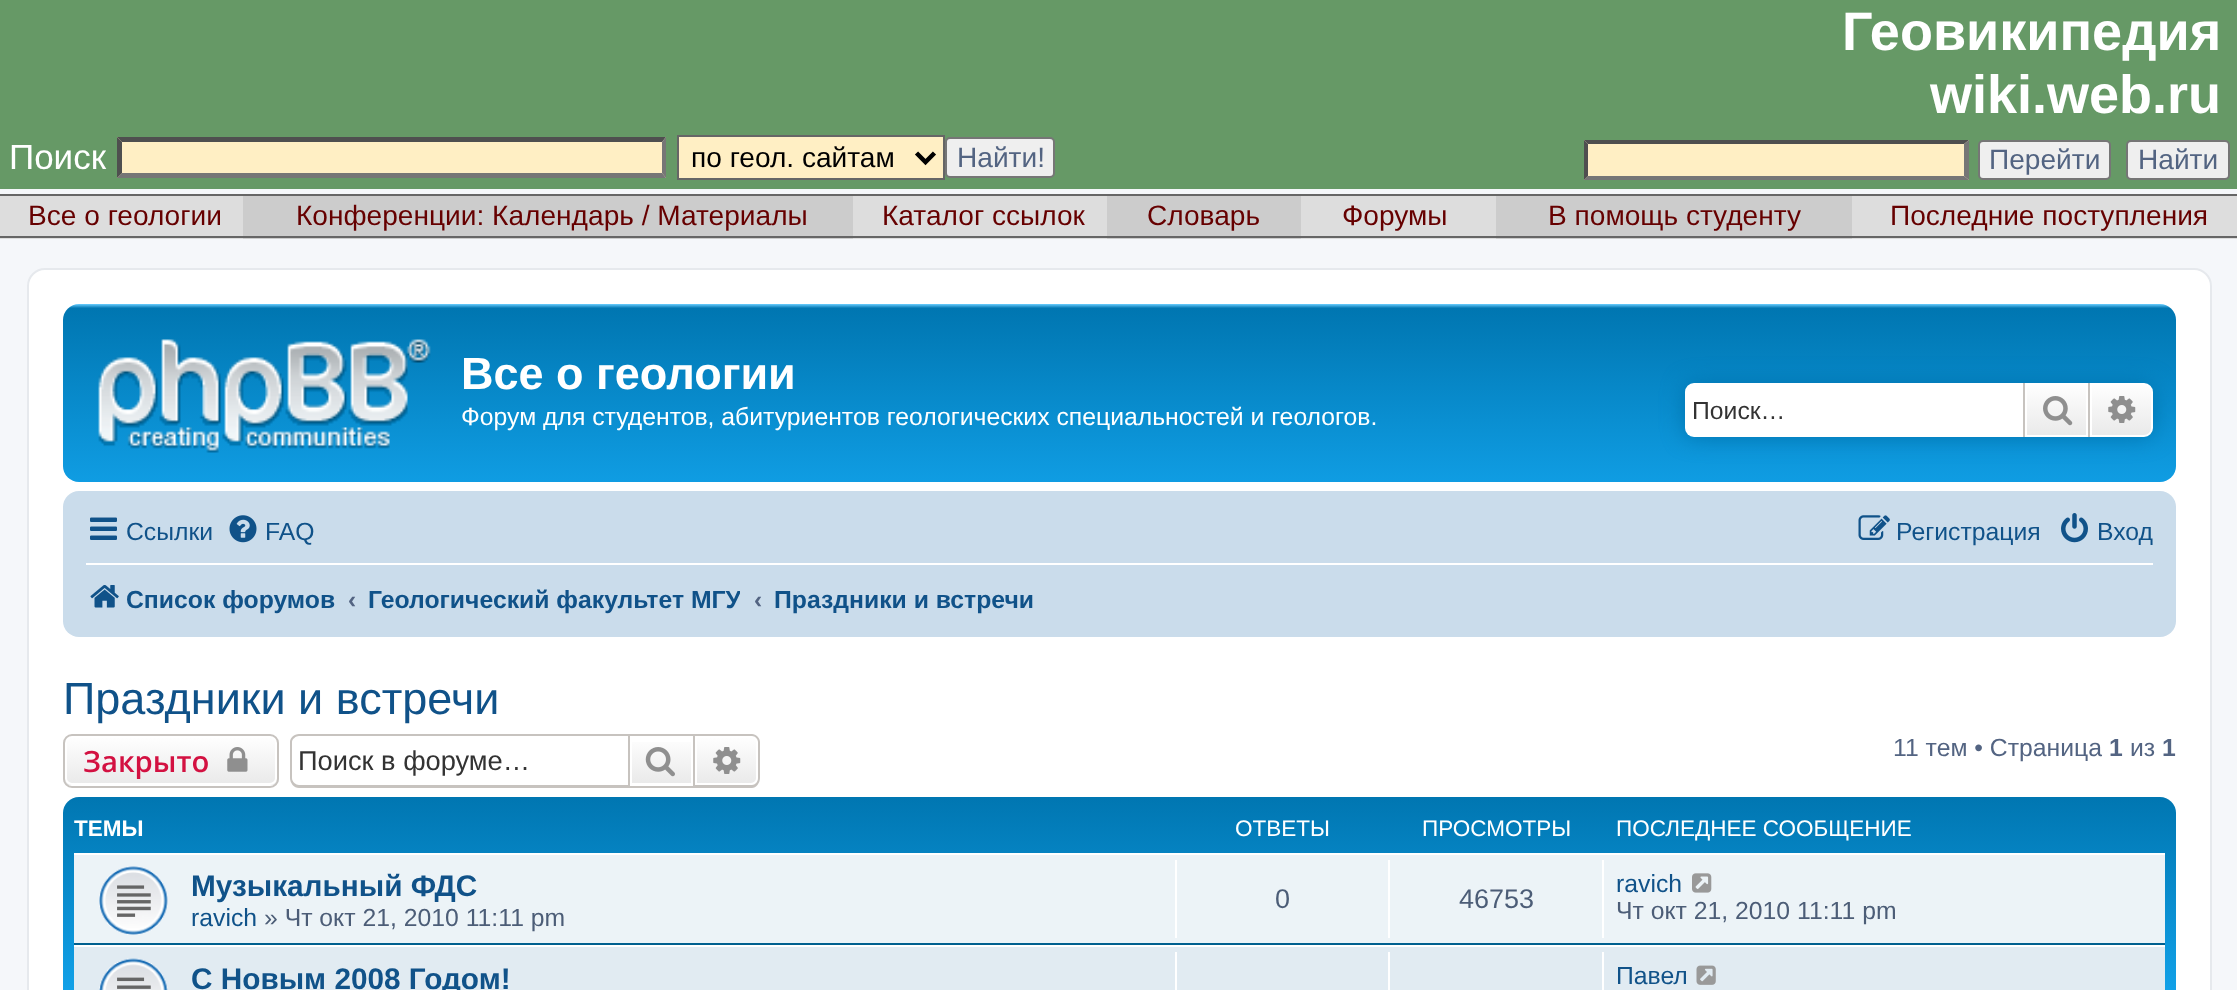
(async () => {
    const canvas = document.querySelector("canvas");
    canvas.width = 2237;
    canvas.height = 990;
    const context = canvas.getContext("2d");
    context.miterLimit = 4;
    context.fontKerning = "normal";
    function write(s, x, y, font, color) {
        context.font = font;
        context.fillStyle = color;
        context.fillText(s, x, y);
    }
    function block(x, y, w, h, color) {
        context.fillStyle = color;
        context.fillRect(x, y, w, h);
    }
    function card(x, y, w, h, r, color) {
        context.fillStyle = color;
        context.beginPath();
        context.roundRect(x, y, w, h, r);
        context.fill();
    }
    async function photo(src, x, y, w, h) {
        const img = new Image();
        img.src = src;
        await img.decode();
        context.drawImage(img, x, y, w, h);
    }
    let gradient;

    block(0, 0, 2237, 990, "rgb(245, 247, 250)");
    block(0, 0, 2237, 189, "rgb(102, 153, 102)");
    write("Геовикипедия", 1842, 50, "bold 54px Liberation Sans", "rgb(255, 255, 255)");
    write("wiki.web.ru", 1930, 113, "bold 54px Liberation Sans", "rgb(255, 255, 255)");
    write("Поиск", 9, 169, "35px Liberation Sans", "rgb(255, 255, 255)");
    block(117, 137, 549, 41, "rgb(255, 239, 196)");
    context.fillStyle = "rgb(79, 79, 79)";
    context.beginPath();
    context.moveTo(117, 137);
    context.lineTo(666, 137);
    context.lineTo(662, 142);
    context.lineTo(122, 142);
    context.closePath();
    context.fill();
    context.fillStyle = "rgb(118, 118, 118)";
    context.beginPath();
    context.moveTo(666, 137);
    context.lineTo(666, 178);
    context.lineTo(662, 173);
    context.lineTo(662, 142);
    context.closePath();
    context.fill();
    context.beginPath();
    context.moveTo(666, 178);
    context.lineTo(117, 178);
    context.lineTo(122, 173);
    context.lineTo(662, 173);
    context.closePath();
    context.fill();
    context.fillStyle = "rgb(79, 79, 79)";
    context.beginPath();
    context.moveTo(117, 178);
    context.lineTo(117, 137);
    context.lineTo(122, 142);
    context.lineTo(122, 173);
    context.closePath();
    context.fill();
    context.fillStyle = "rgb(255, 239, 196)";
    context.beginPath();
    context.rect(678, 136, 266, 43);
    context.fill();
    context.strokeStyle = "rgb(102, 102, 102)";
    context.lineWidth = 2;
    context.stroke();
    context.beginPath();
    context.moveTo(916.5, 153);
    context.lineTo(925.5, 162);
    context.lineTo(934.5, 153);
    context.strokeStyle = "rgb(0, 0, 0)";
    context.lineWidth = 4.5;
    context.stroke();
    write("по геол. сайтам", 691, 167, "28.1px Liberation Sans", "rgb(0, 0, 0)");
    context.fillStyle = "rgb(239, 239, 239)";
    context.beginPath();
    context.roundRect(946, 138, 108, 39, 4);
    context.fill();
    context.strokeStyle = "rgb(118, 118, 118)";
    context.lineWidth = 2;
    context.stroke();
    write("Найти!", 957, 167, "28.1px Liberation Sans", "rgb(83, 100, 130)");
    block(1584, 140, 385, 40, "rgb(255, 239, 196)");
    context.fillStyle = "rgb(79, 79, 79)";
    context.beginPath();
    context.moveTo(1584, 140);
    context.lineTo(1969, 140);
    context.lineTo(1964, 144);
    context.lineTo(1588, 144);
    context.closePath();
    context.fill();
    context.fillStyle = "rgb(118, 118, 118)";
    context.beginPath();
    context.moveTo(1969, 140);
    context.lineTo(1969, 180);
    context.lineTo(1964, 176);
    context.lineTo(1964, 144);
    context.closePath();
    context.fill();
    context.beginPath();
    context.moveTo(1969, 180);
    context.lineTo(1584, 180);
    context.lineTo(1588, 176);
    context.lineTo(1964, 176);
    context.closePath();
    context.fill();
    context.fillStyle = "rgb(79, 79, 79)";
    context.beginPath();
    context.moveTo(1584, 180);
    context.lineTo(1584, 140);
    context.lineTo(1588, 144);
    context.lineTo(1588, 176);
    context.closePath();
    context.fill();
    context.fillStyle = "rgb(239, 239, 239)";
    context.beginPath();
    context.roundRect(1979, 141, 131, 38, 4);
    context.fill();
    context.stroke();
    write("Перейти", 1989, 169, "28.1px Liberation Sans", "rgb(83, 100, 130)");
    context.fillStyle = "rgb(239, 239, 239)";
    context.beginPath();
    context.roundRect(2127, 141, 102, 38, 4);
    context.fill();
    context.stroke();
    write("Найти", 2138, 169, "28.1px Liberation Sans", "rgb(83, 100, 130)");
    block(243, 196, 1609, 43, "rgb(204, 204, 204)");
    block(0, 194, 2237, 2, "rgb(102, 102, 102)");
    block(0, 196, 243, 43, "rgb(221, 221, 221)");
    block(853, 196, 254, 43, "rgb(221, 221, 221)");
    block(1301, 196, 195, 43, "rgb(221, 221, 221)");
    block(1852, 196, 385, 43, "rgb(221, 221, 221)");
    block(0, 236, 2237, 2, "rgb(102, 102, 102)");
    write("Все о геологии", 28, 225, "28.1px Liberation Sans", "rgb(102, 0, 0)");
    write("Конференции: Календарь / Материалы", 296, 225, "28.1px Liberation Sans", "rgb(102, 0, 0)");
    write("Каталог ссылок", 882, 225, "28.1px Liberation Sans", "rgb(102, 0, 0)");
    write("Словарь", 1147, 225, "28.1px Liberation Sans", "rgb(102, 0, 0)");
    write("Форумы", 1342, 225, "28.1px Liberation Sans", "rgb(102, 0, 0)");
    write("В помощь студенту", 1548, 225, "28.1px Liberation Sans", "rgb(102, 0, 0)");
    write("Последние поступления", 1890, 225, "28.1px Liberation Sans", "rgb(102, 0, 0)");
    context.fillStyle = "rgb(255, 255, 255)";
    context.beginPath();
    context.roundRect(28, 269, 2183, 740, 17);
    context.fill();
    context.strokeStyle = "rgb(230, 233, 237)";
    context.stroke();
    gradient = context.createLinearGradient(1119, 304, 1119, 511);
    gradient.addColorStop(0, "rgb(106, 206, 255)");
    gradient.addColorStop(0.02, "rgb(0, 118, 177)");
    gradient.addColorStop(1, "rgb(18, 163, 235)");
    context.fillStyle = gradient;
    context.beginPath();
    context.roundRect(63, 304, 2113, 178, 16);
    context.fill();
    await photo("media/1.png", 98, 339, 333, 114);
    write("Все о геологии", 461, 389, "bold 45px Liberation Sans", "rgb(255, 255, 255)");
    write("Форум для студентов, абитуриентов геологических специальностей и геологов.", 461, 425, "24.75px Liberation Sans", "rgb(255, 255, 255)");
    context.fillStyle = "rgb(0, 117, 176)";
    context.filter = "blur(11px)";
    context.beginPath();
    context.roundRect(1685, 383, 468, 54, 9);
    context.fill();
    context.filter = "none";
    context.fillStyle = "rgb(255, 255, 255)";
    context.beginPath();
    context.roundRect(1685, 383, 338, 54, [9, 0, 0, 9]);
    context.fill();
    write("Поиск…", 1692, 419, "24.75px Liberation Sans", "rgb(51, 51, 51)");
    gradient = context.createLinearGradient(2057, 383, 2057, 437);
    gradient.addColorStop(0, "rgb(255, 255, 255)");
    gradient.addColorStop(1, "rgb(233, 233, 233)");
    context.fillStyle = gradient;
    context.fillRect(2027, 385, 59, 50);
    context.strokeStyle = "rgb(255, 255, 255)";
    context.strokeRect(2026, 384, 61, 52);
    block(2088, 383, 2, 54, "rgb(199, 195, 191)");
    block(2023, 383, 2, 54, "rgb(199, 195, 191)");
    await photo("media/2.png", 2043, 396, 30, 30);
    gradient = context.createLinearGradient(2122, 383, 2122, 437);
    gradient.addColorStop(0, "rgb(255, 255, 255)");
    gradient.addColorStop(1, "rgb(233, 233, 233)");
    context.fillStyle = gradient;
    context.beginPath();
    context.roundRect(2091, 384, 61, 52, [0, 8, 8, 0]);
    context.fill();
    context.stroke();
    await photo("media/3.png", 2108, 396, 28, 27);
    card(63, 491, 2113, 146, 16, "rgb(202, 220, 235)");
    await photo("media/4.png", 90, 517, 27, 23);
    write("Ссылки", 126, 540, "24.75px Liberation Sans", "rgb(16, 82, 137)");
    await photo("media/5.png", 229, 515, 28, 28);
    write("FAQ", 265, 540, "24.75px Liberation Sans", "rgb(16, 82, 137)");
    await photo("media/6.png", 1858, 515, 32, 25);
    write("Регистрация", 1896, 540, "24.75px Liberation Sans", "rgb(16, 82, 137)");
    await photo("media/7.png", 2061, 513, 27, 30);
    write("Вход", 2097, 540, "24.75px Liberation Sans", "rgb(16, 82, 137)");
    block(86, 563, 2067, 2, "rgb(255, 255, 255)");
    await photo("media/8.png", 90, 585, 29, 23);
    write("Список форумов", 126, 608, "bold 24.75px Liberation Sans", "rgb(16, 82, 137)");
    write("‹", 348, 608, "bold 24.75px Liberation Sans", "rgb(83, 100, 130)");
    context.save();
    context.beginPath();
    context.rect(369, 572, 371, 54);
    context.clip();
    write("Геологический факультет МГУ", 368, 608, "bold 24.75px Liberation Sans", "rgb(16, 82, 137)");
    context.restore();
    write("‹", 754, 608, "bold 24.75px Liberation Sans", "rgb(83, 100, 130)");
    write("Праздники и встречи", 774, 608, "bold 24.75px Liberation Sans", "rgb(16, 82, 137)");
    write("Праздники и встречи", 63, 714, "45px Liberation Sans", "rgb(16, 82, 137)");
    context.save();
    context.beginPath();
    context.roundRect(63, 734, 216, 54, 9);
    context.clip();
    gradient = context.createLinearGradient(171, 736, 171, 785);
    gradient.addColorStop(0, "rgb(255, 255, 255)");
    gradient.addColorStop(1, "rgb(233, 233, 233)");
    context.fillStyle = gradient;
    context.fillRect(63, 736, 216, 49);
    context.restore();
    context.beginPath();
    context.roundRect(66, 737, 210, 47, 6);
    context.stroke();
    context.beginPath();
    context.roundRect(64, 735, 214, 52, 8);
    context.strokeStyle = "rgb(199, 195, 191)";
    context.stroke();
    write("Закрыто", 83, 772, "600 29.25px Open Sans", "rgb(211, 17, 65)");
    await photo("media/9.png", 227, 747, 21, 25);
    context.fillStyle = "rgb(199, 195, 191)";
    context.beginPath();
    context.moveTo(299, 734);
    context.lineTo(628, 734);
    context.lineTo(628, 788);
    context.lineTo(299, 788);
    context.bezierCurveTo(294, 788, 290, 783, 290, 778);
    context.lineTo(290, 742);
    context.bezierCurveTo(290, 738, 294, 734, 299, 734);
    context.closePath();
    context.moveTo(299, 736);
    context.lineTo(628, 736);
    context.lineTo(628, 785);
    context.lineTo(299, 785);
    context.bezierCurveTo(296, 785, 292, 782, 292, 778);
    context.lineTo(292, 742);
    context.bezierCurveTo(292, 739, 296, 736, 299, 736);
    context.closePath();
    context.fill("evenodd");
    write("Поиск в форуме…", 298, 770, "27.25px Liberation Sans", "rgb(51, 51, 51)");
    gradient = context.createLinearGradient(662, 736, 662, 785);
    gradient.addColorStop(0, "rgb(255, 255, 255)");
    gradient.addColorStop(1, "rgb(233, 233, 233)");
    context.fillStyle = gradient;
    context.fillRect(632, 742, 59, 41);
    context.strokeRect(629, 735, 65, 52);
    await photo("media/10.png", 645, 747, 30, 30);
    gradient = context.createLinearGradient(727, 736, 727, 785);
    gradient.addColorStop(0, "rgb(255, 255, 255)");
    gradient.addColorStop(1, "rgb(233, 233, 233)");
    context.fillStyle = gradient;
    context.beginPath();
    context.roundRect(696, 737, 61, 47, [0, 6, 6, 0]);
    context.fill();
    context.strokeStyle = "rgb(255, 255, 255)";
    context.stroke();
    context.fillStyle = "rgb(199, 195, 191)";
    context.beginPath();
    context.moveTo(695, 734);
    context.lineTo(752, 734);
    context.bezierCurveTo(756, 734, 760, 738, 760, 742);
    context.lineTo(760, 778);
    context.bezierCurveTo(760, 783, 756, 788, 752, 788);
    context.lineTo(695, 788);
    context.closePath();
    context.moveTo(695, 736);
    context.lineTo(752, 736);
    context.bezierCurveTo(755, 736, 758, 739, 758, 742);
    context.lineTo(758, 778);
    context.bezierCurveTo(758, 782, 755, 785, 752, 785);
    context.lineTo(695, 785);
    context.closePath();
    context.fill("evenodd");
    await photo("media/11.png", 713, 747, 28, 27);
    write("11 тем • Страница", 1893, 756, "24.75px Liberation Sans", "rgb(83, 100, 130)");
    write("1", 2109, 756, "bold 24.75px Liberation Sans", "rgb(83, 100, 130)");
    write("из", 2130, 756, "24.75px Liberation Sans", "rgb(83, 100, 130)");
    write("1", 2162, 756, "bold 24.75px Liberation Sans", "rgb(83, 100, 130)");
    gradient = context.createLinearGradient(1119, 796, 1119, 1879);
    gradient.addColorStop(0, "rgb(106, 206, 255)");
    gradient.addColorStop(0, "rgb(0, 118, 177)");
    gradient.addColorStop(0.19, "rgb(18, 163, 235)");
    gradient.addColorStop(1, "rgb(18, 163, 235)");
    context.fillStyle = gradient;
    context.beginPath();
    context.roundRect(63, 797, 2113, 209, 16);
    context.fill();
    write("ТЕМЫ", 74, 836, "bold 22.5px Liberation Sans", "rgb(255, 255, 255)");
    write("ОТВЕТЫ", 1235, 836, "22.5px Liberation Sans", "rgb(255, 255, 255)");
    write("ПРОСМОТРЫ", 1422, 836, "22.5px Liberation Sans", "rgb(255, 255, 255)");
    write("ПОСЛЕДНЕЕ СООБЩЕНИЕ", 1616, 836, "22.5px Liberation Sans", "rgb(255, 255, 255)");
    block(74, 855, 2091, 88, "rgb(236, 243, 247)");
    block(74, 853, 2091, 2, "rgb(255, 255, 255)");
    block(74, 943, 2091, 2, "rgb(0, 96, 143)");
    await photo("media/12.png", 99, 866, 69, 69);
    write("Музыкальный ФДС", 191, 896, "bold 29.75px Liberation Sans", "rgb(16, 82, 137)");
    write("ravich", 191, 926, "24.75px Liberation Sans", "rgb(16, 82, 137)");
    write("» Чт окт 21, 2010 11:11 pm", 264, 926, "24.75px Liberation Sans", "rgb(76, 93, 119)");
    block(1175, 860, 2, 78, "rgb(255, 255, 255)");
    write("0", 1275, 908, "27px Liberation Sans", "rgb(76, 93, 119)");
    block(1388, 860, 2, 78, "rgb(255, 255, 255)");
    write("46753", 1459, 908, "27px Liberation Sans", "rgb(76, 93, 119)");
    block(1602, 860, 2, 78, "rgb(255, 255, 255)");
    write("ravich", 1616, 892, "24.75px Liberation Sans", "rgb(16, 82, 137)");
    await photo("media/13.png", 1692, 873, 20, 20);
    write("Чт окт 21, 2010 11:11 pm", 1616, 919, "24.75px Liberation Sans", "rgb(76, 93, 119)");
    block(74, 947, 2091, 43, "rgb(225, 235, 242)");
    block(74, 945, 2091, 2, "rgb(255, 255, 255)");
    await photo("media/14.png", 99, 958, 69, 32);
    write("С Новым 2008 Годом!", 191, 989, "bold 29.75px Liberation Sans", "rgb(16, 82, 137)");
    block(1175, 952, 2, 38, "rgb(255, 255, 255)");
    block(1388, 952, 2, 38, "rgb(255, 255, 255)");
    block(1602, 952, 2, 38, "rgb(255, 255, 255)");
    write("Павел", 1616, 984, "24.75px Liberation Sans", "rgb(16, 82, 137)");
    await photo("media/15.png", 1696, 965, 20, 20);
})();
